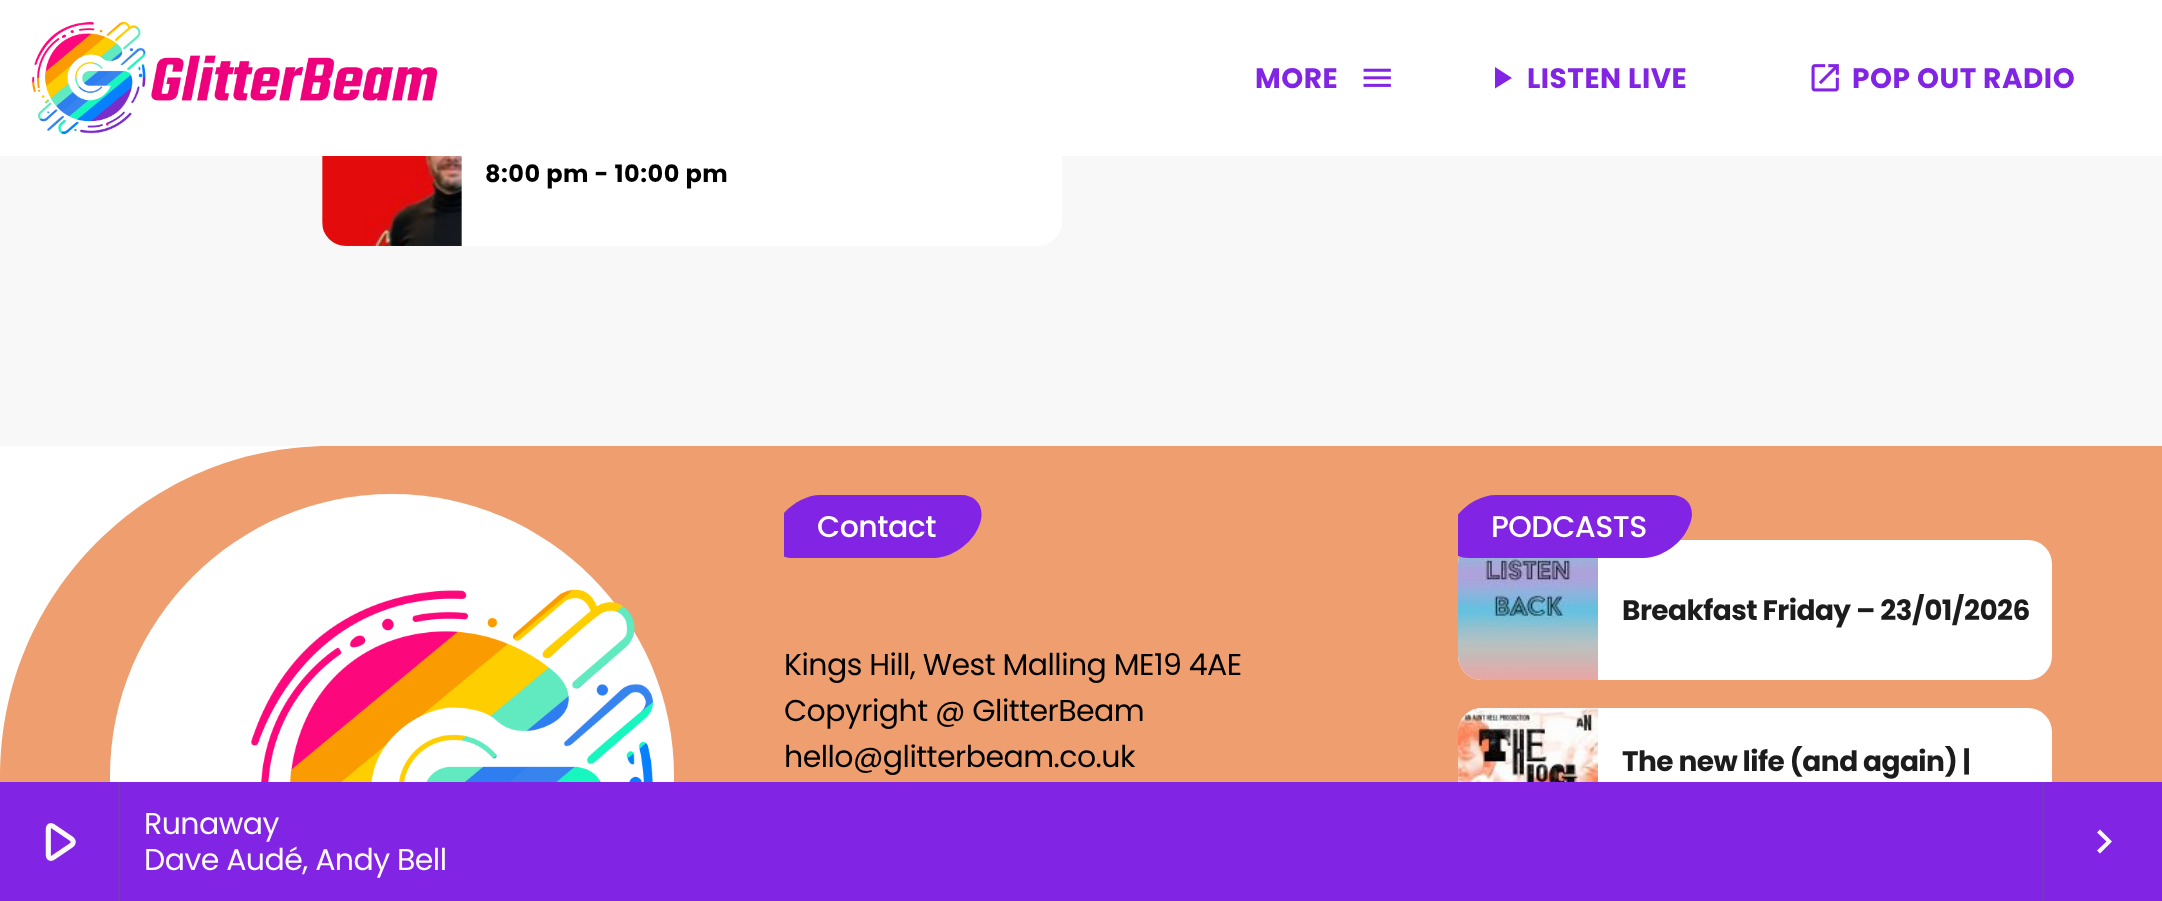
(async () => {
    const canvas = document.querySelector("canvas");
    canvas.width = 2162;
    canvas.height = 901;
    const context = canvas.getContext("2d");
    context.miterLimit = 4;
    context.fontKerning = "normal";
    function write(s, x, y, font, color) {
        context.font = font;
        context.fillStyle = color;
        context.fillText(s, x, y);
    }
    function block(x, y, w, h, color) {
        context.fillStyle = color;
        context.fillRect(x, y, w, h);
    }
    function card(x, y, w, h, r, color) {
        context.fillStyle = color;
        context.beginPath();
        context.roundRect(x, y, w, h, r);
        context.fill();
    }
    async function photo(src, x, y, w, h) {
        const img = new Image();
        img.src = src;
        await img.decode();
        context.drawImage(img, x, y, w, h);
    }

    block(0, 0, 2162, 901, "rgb(255, 255, 255)");
    block(0, 156, 2162, 290, "rgb(248, 248, 248)");
    card(322, 106, 740, 140, 24, "rgb(255, 255, 255)");
    await photo("media/1.png", 32, 21, 406, 114);
    context.letterSpacing = "0.5px";
    write("MORE", 1255, 88, "bold 28px Poppins", "rgb(130, 36, 227)");
    await photo("media/2.png", 1363, 68, 28, 19);
    context.beginPath();
    context.moveTo(1495, 67);
    context.lineTo(1512, 78);
    context.lineTo(1495, 88.5);
    context.closePath();
    context.fill();
    write("LISTEN LIVE", 1527, 88, "bold 28px Poppins", "rgb(130, 36, 227)");
    await photo("media/3.png", 1811, 64, 28, 28);
    write("POP OUT RADIO", 1852, 88, "bold 28px Poppins", "rgb(130, 36, 227)");
    await photo("media/4.png", 322, 156, 140, 90);
    write("8:00 pm - 10:00 pm", 485, 182, "bold 24px Poppins", "rgb(0, 0, 0)");
    context.fillStyle = "rgb(238, 158, 111)";
    context.beginPath();
    context.moveTo(330, 446);
    context.lineTo(2162, 446);
    context.lineTo(2162, 901);
    context.bezierCurveTo(2162, 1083.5, 2014.5, 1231, 1832, 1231);
    context.lineTo(0, 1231);
    context.lineTo(0, 776);
    context.bezierCurveTo(0, 593.5, 147.5, 446, 330, 446);
    context.closePath();
    context.fill();
    context.fillStyle = "rgb(255, 255, 255)";
    context.beginPath();
    context.moveTo(392, 494);
    context.bezierCurveTo(547.5, 494, 674, 620.5, 674, 776);
    context.lineTo(674, 901);
    context.bezierCurveTo(674, 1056.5, 547.5, 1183, 392, 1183);
    context.lineTo(110, 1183);
    context.lineTo(110, 776);
    context.bezierCurveTo(110, 620.5, 236.5, 494, 392, 494);
    context.closePath();
    context.fill();
    await photo("media/5.png", 251, 589, 402, 193);
    context.save();
    context.beginPath();
    context.rect(784, 494, 200, 64);
    context.clip();
    context.fillStyle = "rgb(130, 36, 227)";
    context.beginPath();
    context.moveTo(820, 495);
    context.lineTo(961, 495);
    context.bezierCurveTo(978, 495, 986, 509, 979, 526);
    context.bezierCurveTo(972, 544, 951, 558, 934, 558);
    context.lineTo(793, 558);
    context.bezierCurveTo(776, 558, 768, 544, 775, 526);
    context.bezierCurveTo(783, 509, 803, 495, 820, 495);
    context.closePath();
    context.fill();
    context.restore();
    context.letterSpacing = "-0.5px";
    write("Contact", 817, 537, "500 30px Poppins", "rgb(255, 255, 255)");
    context.letterSpacing = "-0.55px";
    write("Kings Hill, West Malling ME19 4AE", 784, 675, "30px Poppins", "rgb(0, 0, 0)");
    write("Copyright @ GlitterBeam", 784, 721, "30px Poppins", "rgb(0, 0, 0)");
    write("hello@glitterbeam.co.uk", 784, 767, "30px Poppins", "rgb(0, 0, 0)");
    card(1458, 540, 594, 140, 24, "rgb(255, 255, 255)");
    await photo("media/6.png", 1458, 556, 140, 124);
    context.save();
    context.beginPath();
    context.rect(1458, 494, 236, 64);
    context.clip();
    context.fillStyle = "rgb(130, 36, 227)";
    context.beginPath();
    context.moveTo(1496, 495);
    context.lineTo(1671, 495);
    context.bezierCurveTo(1688, 495, 1697, 509, 1689, 526);
    context.bezierCurveTo(1682, 544, 1661, 558, 1644, 558);
    context.lineTo(1469, 558);
    context.bezierCurveTo(1451, 558, 1443, 544, 1451, 526);
    context.bezierCurveTo(1458, 509, 1478, 495, 1496, 495);
    context.closePath();
    context.fill();
    context.restore();
    context.letterSpacing = "-0.5px";
    write("PODCASTS", 1491, 537, "500 30px Poppins", "rgb(255, 255, 255)");
    context.save();
    context.beginPath();
    context.rect(1622, 594, 408, 34);
    context.clip();
    context.letterSpacing = "-0.55px";
    write("Breakfast Friday – 23/01/2026", 1622, 620, "bold 28px Poppins", "rgb(28, 28, 28)");
    context.restore();
    card(1458, 708, 594, 140, 24, "rgb(255, 255, 255)");
    await photo("media/7.png", 1458, 708, 140, 74);
    context.save();
    context.beginPath();
    context.rect(1622, 746, 414, 66);
    context.clip();
    context.letterSpacing = "-0.55px";
    write("The new life (and again) |", 1622, 771, "bold 28px Poppins", "rgb(28, 28, 28)");
    context.restore();
    block(0, 782, 2162, 119, "rgb(130, 36, 227)");
    block(118, 782, 2, 119, "rgb(121, 55, 189)");
    await photo("media/8.png", 45, 823, 31, 38);
    context.letterSpacing = "-0.55px";
    write("Runaway", 144, 834, "30px Poppins", "rgb(249, 249, 249)");
    write("Dave Audé, Andy Bell", 144, 870, "30px Poppins", "rgb(249, 249, 249)");
    block(2042, 782, 2, 119, "rgb(121, 55, 189)");
    context.fillStyle = "rgb(249, 249, 249)";
    context.beginPath();
    context.moveTo(2097, 850.5);
    context.lineTo(2106.5, 841.5);
    context.lineTo(2097, 832.5);
    context.lineTo(2100, 829.5);
    context.lineTo(2112, 841.5);
    context.lineTo(2100, 853.5);
    context.closePath();
    context.fill();
})();
